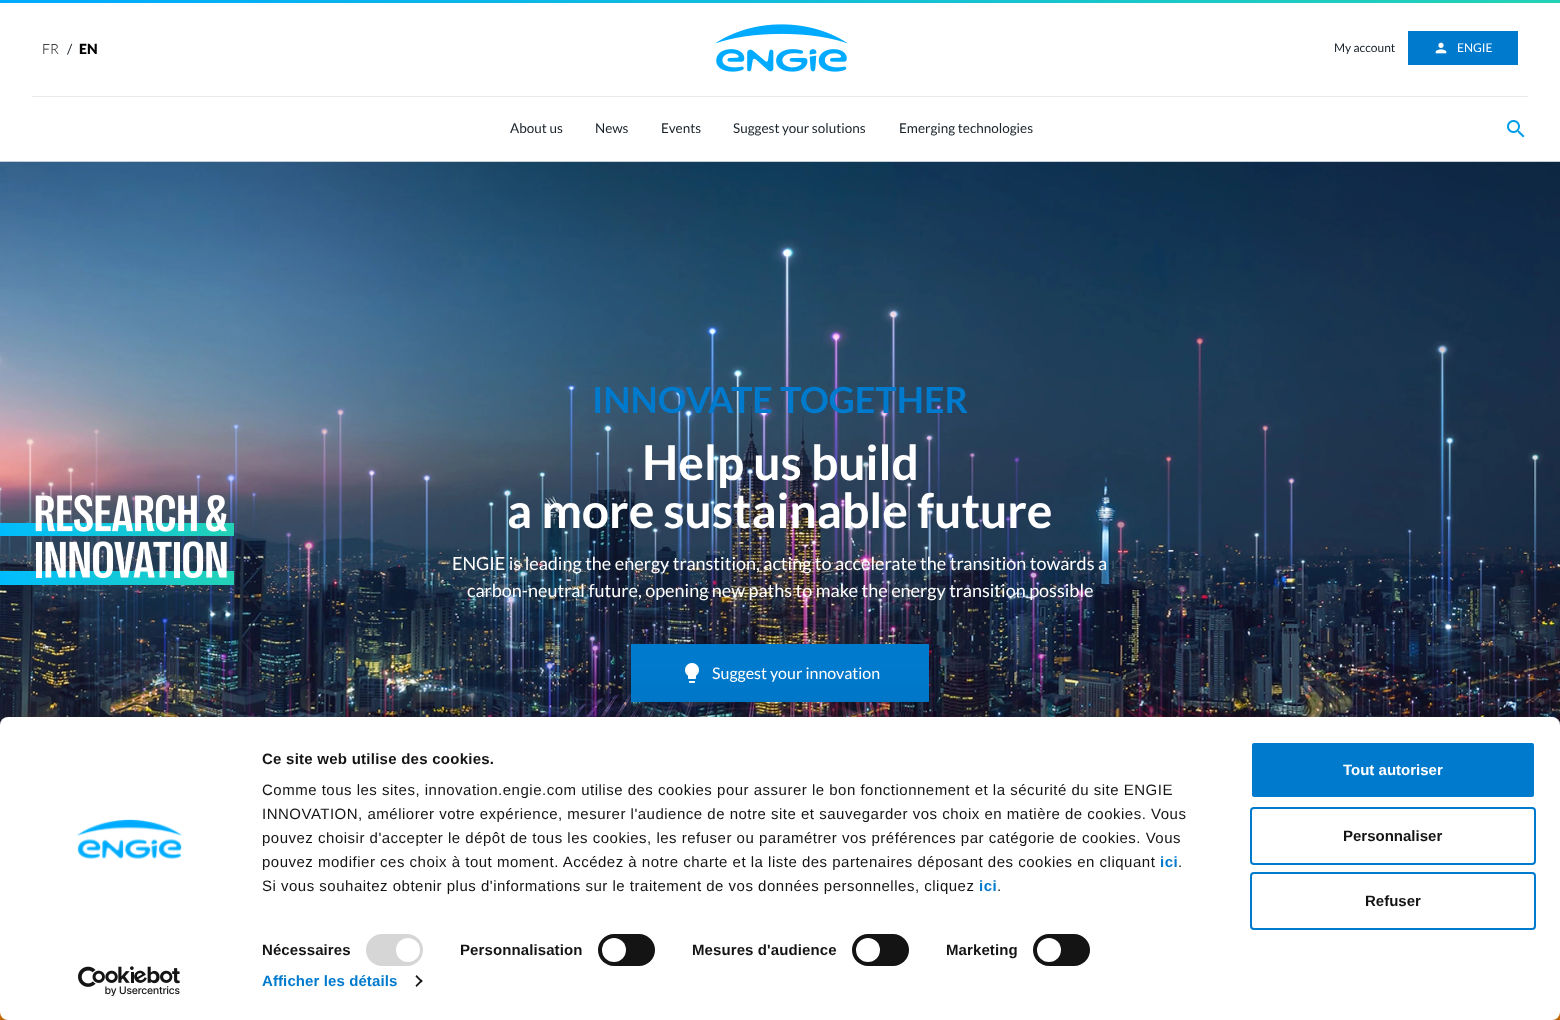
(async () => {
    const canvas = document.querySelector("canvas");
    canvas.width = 1560;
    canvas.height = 1020;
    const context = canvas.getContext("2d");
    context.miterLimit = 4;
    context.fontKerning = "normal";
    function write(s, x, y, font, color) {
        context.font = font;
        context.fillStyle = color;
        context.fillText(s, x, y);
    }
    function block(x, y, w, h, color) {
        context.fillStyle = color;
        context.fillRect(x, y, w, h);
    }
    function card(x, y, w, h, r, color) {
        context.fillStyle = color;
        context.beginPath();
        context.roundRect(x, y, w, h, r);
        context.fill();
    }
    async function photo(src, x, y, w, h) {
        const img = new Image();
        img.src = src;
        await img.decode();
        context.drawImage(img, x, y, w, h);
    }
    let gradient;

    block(0, 0, 1560, 1020, "rgb(255, 255, 255)");
    block(0, 161, 1560, 1, "rgb(197, 206, 213)");
    gradient = context.createLinearGradient(0, 1.5, 1560, 1.5);
    gradient.addColorStop(0, "rgb(0, 170, 255)");
    gradient.addColorStop(1, "rgb(35, 210, 181)");
    context.fillStyle = gradient;
    context.fillRect(0, 0, 1560, 3);
    write("FR", 42, 54, "300 14px Lato", "rgb(0, 0, 0)");
    write("/", 67, 54, "14px Lato", "rgb(25, 34, 41)");
    write("EN", 79, 54, "900 14px Lato", "rgb(0, 0, 0)");
    await photo("media/1.png", 715, 24, 133, 48);
    write("My account", 1334, 52, "12px Lato", "rgb(25, 34, 41)");
    block(1408, 31, 110, 34, "rgb(0, 122, 205)");
    await photo("media/2.png", 1435, 42, 12, 12);
    write("ENGIE", 1457, 52, "12px Lato", "rgb(255, 255, 255)");
    block(32, 96, 1496, 1, "rgb(230, 234, 237)");
    write("About us", 510, 133, "13.5px Lato", "rgb(25, 34, 41)");
    write("News", 595, 133, "13.5px Lato", "rgb(25, 34, 41)");
    write("Events", 661, 133, "13.5px Lato", "rgb(25, 34, 41)");
    write("Suggest your solutions", 733, 133, "13.5px Lato", "rgb(25, 34, 41)");
    write("Emerging technologies", 899, 133, "13.5px Lato", "rgb(25, 34, 41)");
    await photo("media/3.png", 1507, 120, 18, 18);
    await photo("media/4.png", 0, 162, 1560, 563);
    write("INNOVATE TOGETHER", 592, 413, "bold 36px Lato", "rgb(0, 122, 205)");
    write("Help us build", 642, 480, "bold 48px Lato", "rgb(255, 255, 255)");
    write("a more sustainable future", 507, 528, "bold 48px Lato", "rgb(255, 255, 255)");
    await photo("media/5.png", 0, 495, 234, 90);
    write("ENGIE is leading the energy transtition, acting to accelerate the transition towards a", 452, 570, "18px Lato", "rgb(255, 255, 255)");
    write("carbon-neutral future, opening new paths to make the energy transition possible", 467, 597, "18px Lato", "rgb(255, 255, 255)");
    block(631, 644, 298, 58, "rgb(0, 122, 205)");
    await photo("media/6.png", 685, 663, 14, 20);
    write("Suggest your innovation", 712, 679, "16px Lato", "rgb(255, 255, 255)");
    block(0, 1012, 1560, 8, "rgb(224, 118, 2)");
    context.fillStyle = "rgba(0, 0, 0, 0.3)";
    context.filter = "blur(35px)";
    context.beginPath();
    context.roundRect(0, 747, 1560, 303, 8);
    context.fill();
    context.filter = "none";
    card(0, 717, 1560, 303, 8, "rgb(255, 255, 255)");
    await photo("media/7.png", 77, 819, 105, 40);
    await photo("media/8.png", 78, 966, 102, 30);
    context.letterSpacing = "0.25px";
    write("Ce site web utilise des cookies.", 262, 764, "bold 15px Liberation Sans", "rgb(20, 20, 20)");
    context.letterSpacing = "0.5px";
    write("Comme tous les sites, innovation.engie.com utilise des cookies pour assurer le bon fonctionnement et la sécurité du site ENGIE", 262, 795, "15px Liberation Sans", "rgb(20, 20, 20)");
    write("INNOVATION, améliorer votre expérience, mesurer l'audience de notre site et sauvegarder vos choix en matière de cookies. Vous", 262, 819, "15px Liberation Sans", "rgb(20, 20, 20)");
    write("pouvez choisir d'accepter le dépôt de tous les cookies, les refuser ou paramétrer vos préférences par catégorie de cookies. Vous", 262, 843, "15px Liberation Sans", "rgb(20, 20, 20)");
    write("pouvez modifier ces choix à tout moment. Accédez à notre charte et la liste des partenaires déposant des cookies en cliquant", 262, 867, "15px Liberation Sans", "rgb(20, 20, 20)");
    write("ici", 1160, 867, "bold 15px Liberation Sans", "rgb(0, 122, 205)");
    write(".", 1178, 867, "15px Liberation Sans", "rgb(20, 20, 20)");
    write("Si vous souhaitez obtenir plus d'informations sur le traitement de vos données personnelles, cliquez", 262, 891, "15px Liberation Sans", "rgb(20, 20, 20)");
    write("ici", 979, 891, "bold 15px Liberation Sans", "rgb(0, 122, 205)");
    write(".", 997, 891, "15px Liberation Sans", "rgb(20, 20, 20)");
    context.letterSpacing = "0.1px";
    write("Nécessaires", 262, 955, "bold 15px Liberation Sans", "rgb(20, 20, 20)");
    card(366, 934, 57, 32, 16, "rgb(214, 214, 214)");
    context.fillStyle = "rgb(255, 255, 255)";
    context.beginPath();
    context.arc(408, 950, 12, 0, Math.PI * 2);
    context.fill();
    write("Personnalisation", 460, 955, "bold 15px Liberation Sans", "rgb(20, 20, 20)");
    card(598, 934, 57, 32, 16, "rgb(20, 20, 20)");
    context.fillStyle = "rgb(255, 255, 255)";
    context.beginPath();
    context.arc(614, 950, 12, 0, Math.PI * 2);
    context.fill();
    write("Mesures d'audience", 692, 955, "bold 15px Liberation Sans", "rgb(20, 20, 20)");
    card(852, 934, 57, 32, 16, "rgb(20, 20, 20)");
    context.fillStyle = "rgb(255, 255, 255)";
    context.beginPath();
    context.arc(868, 950, 12, 0, Math.PI * 2);
    context.fill();
    write("Marketing", 946, 955, "bold 15px Liberation Sans", "rgb(20, 20, 20)");
    card(1033, 934, 57, 32, 16, "rgb(20, 20, 20)");
    context.fillStyle = "rgb(255, 255, 255)";
    context.beginPath();
    context.arc(1049, 950, 12, 0, Math.PI * 2);
    context.fill();
    write("Afficher les détails", 262, 986, "bold 15px Liberation Sans", "rgb(0, 122, 205)");
    context.fillStyle = "rgb(20, 20, 20)";
    context.beginPath();
    context.moveTo(416.5, 975);
    context.lineTo(422.5, 981);
    context.lineTo(421.5, 982.5);
    context.lineTo(415.5, 976.5);
    context.closePath();
    context.fill();
    context.beginPath();
    context.moveTo(421.5, 979.5);
    context.lineTo(422.5, 981);
    context.lineTo(416.5, 987);
    context.lineTo(415.5, 985.5);
    context.closePath();
    context.fill();
    context.fillStyle = "rgb(0, 122, 205)";
    context.beginPath();
    context.roundRect(1251, 742, 284, 56, 3);
    context.fill();
    context.strokeStyle = "rgb(255, 255, 255)";
    context.lineWidth = 2;
    context.stroke();
    context.letterSpacing = "0px";
    write("Tout autoriser", 1343, 775, "bold 15px Liberation Sans", "rgb(255, 255, 255)");
    context.beginPath();
    context.roundRect(1251, 808, 284, 56, 3);
    context.strokeStyle = "rgb(0, 122, 205)";
    context.stroke();
    write("Personnaliser", 1343, 841, "bold 15px Liberation Sans", "rgb(20, 20, 20)");
    context.beginPath();
    context.roundRect(1251, 873, 284, 56, 3);
    context.stroke();
    write("Refuser", 1365, 906, "bold 15px Liberation Sans", "rgb(20, 20, 20)");
})();
